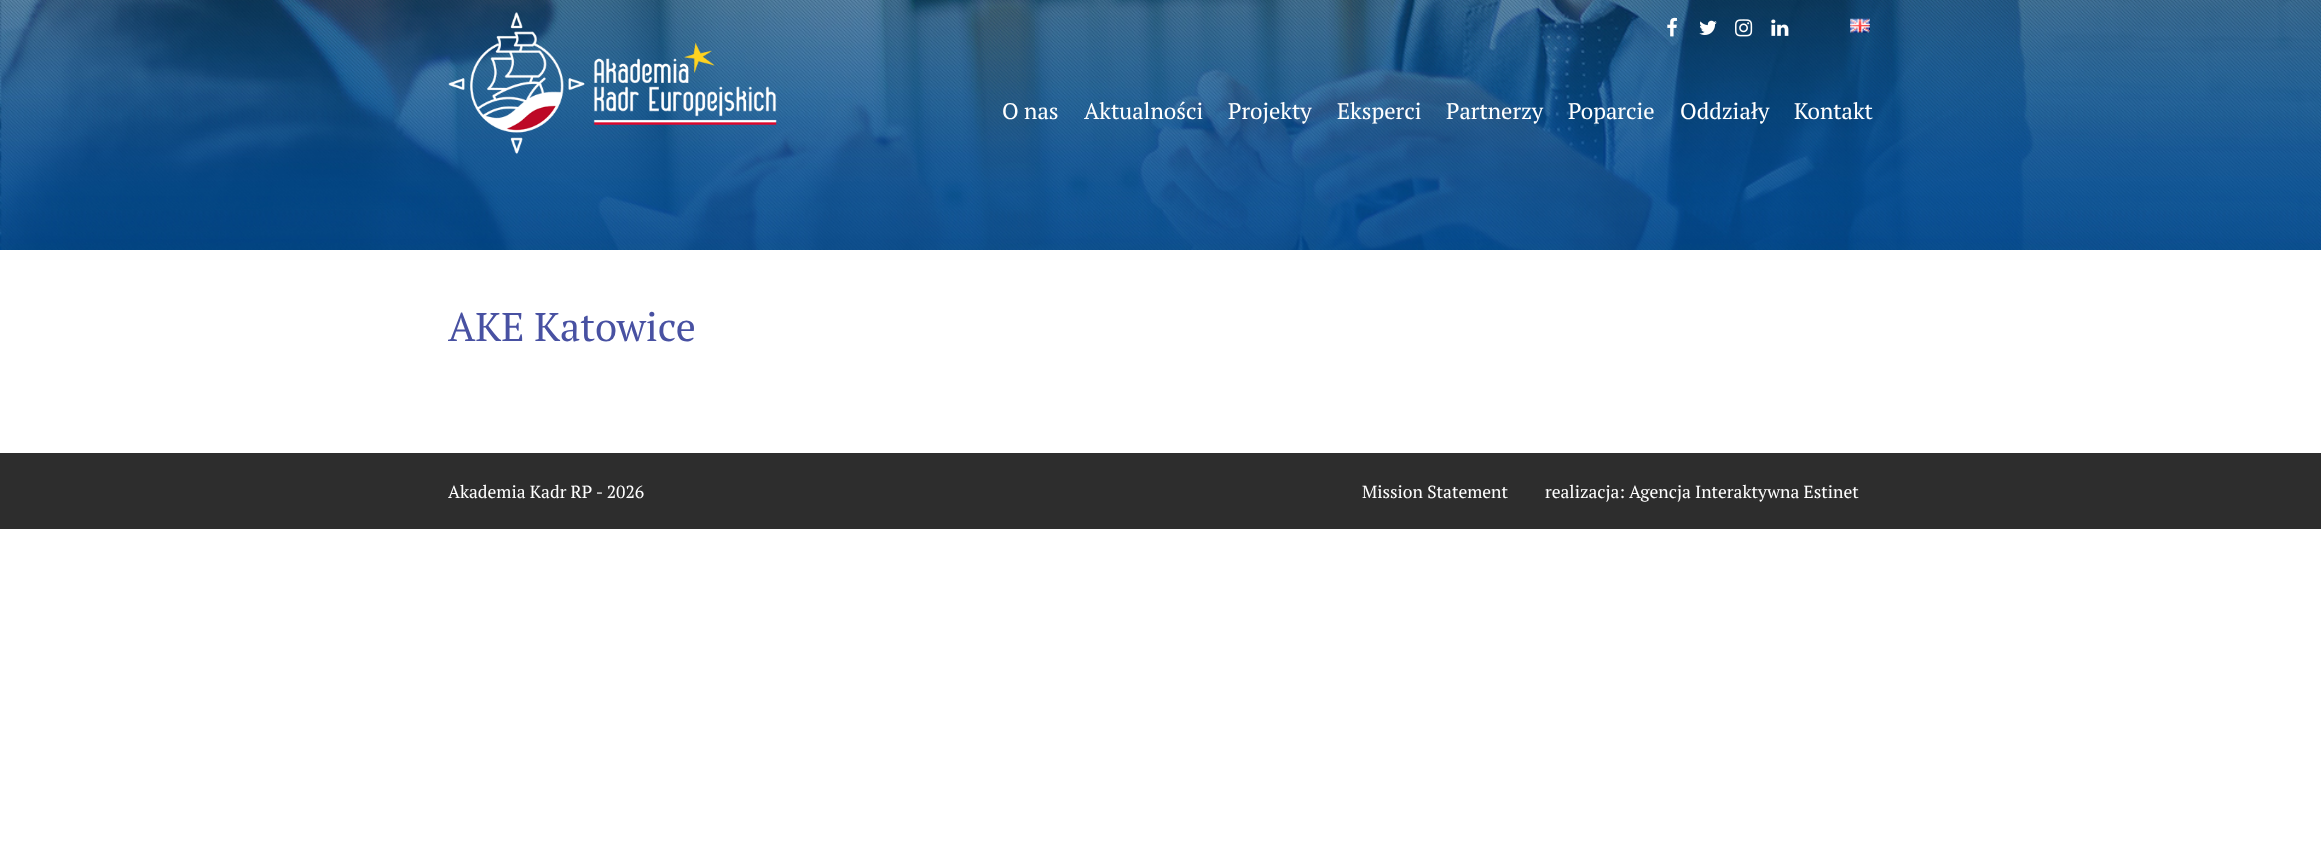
(async () => {
    const canvas = document.querySelector("canvas");
    canvas.width = 2321;
    canvas.height = 851;
    const context = canvas.getContext("2d");
    context.miterLimit = 4;
    context.fontKerning = "normal";
    function write(s, x, y, font, color) {
        context.font = font;
        context.fillStyle = color;
        context.fillText(s, x, y);
    }
    function block(x, y, w, h, color) {
        context.fillStyle = color;
        context.fillRect(x, y, w, h);
    }
    async function photo(src, x, y, w, h) {
        const img = new Image();
        img.src = src;
        await img.decode();
        context.drawImage(img, x, y, w, h);
    }

    block(0, 0, 2321, 851, "rgb(255, 255, 255)");
    await photo("media/1.png", 0, 0, 2321, 250);
    await photo("media/2.png", 448, 12, 329, 142);
    await photo("media/3.png", 1667, 17, 10, 20);
    await photo("media/4.png", 1699, 20, 18, 15);
    await photo("media/5.png", 1735, 19, 18, 18);
    await photo("media/6.png", 1771, 19, 18, 17);
    await photo("media/7.png", 1850, 18, 20, 15);
    write("O nas", 1002, 119, "22.5px PT Serif", "rgb(255, 255, 255)");
    write("Aktualności", 1084, 119, "22.5px PT Serif", "rgb(255, 255, 255)");
    write("Projekty", 1228, 119, "22.5px PT Serif", "rgb(255, 255, 255)");
    write("Eksperci", 1337, 119, "22.5px PT Serif", "rgb(255, 255, 255)");
    write("Partnerzy", 1446, 119, "22.5px PT Serif", "rgb(255, 255, 255)");
    write("Poparcie", 1568, 119, "22.5px PT Serif", "rgb(255, 255, 255)");
    write("Oddziały", 1680, 119, "22.5px PT Serif", "rgb(255, 255, 255)");
    write("Kontakt", 1794, 119, "22.5px PT Serif", "rgb(255, 255, 255)");
    write("AKE Katowice", 448, 341, "40px PT Serif", "rgb(72, 81, 162)");
    block(0, 453, 2321, 76, "rgb(45, 45, 45)");
    write("Akademia Kadr RP - 2026", 448, 498, "17.5px PT Serif", "rgb(255, 255, 255)");
    write("Mission Statement", 1362, 498, "17.5px PT Serif", "rgb(255, 255, 255)");
    write("realizacja:", 1545, 498, "17.5px PT Serif", "rgb(255, 255, 255)");
    write("Agencja Interaktywna Estinet", 1629, 498, "17.5px PT Serif", "rgb(255, 255, 255)");
})();
